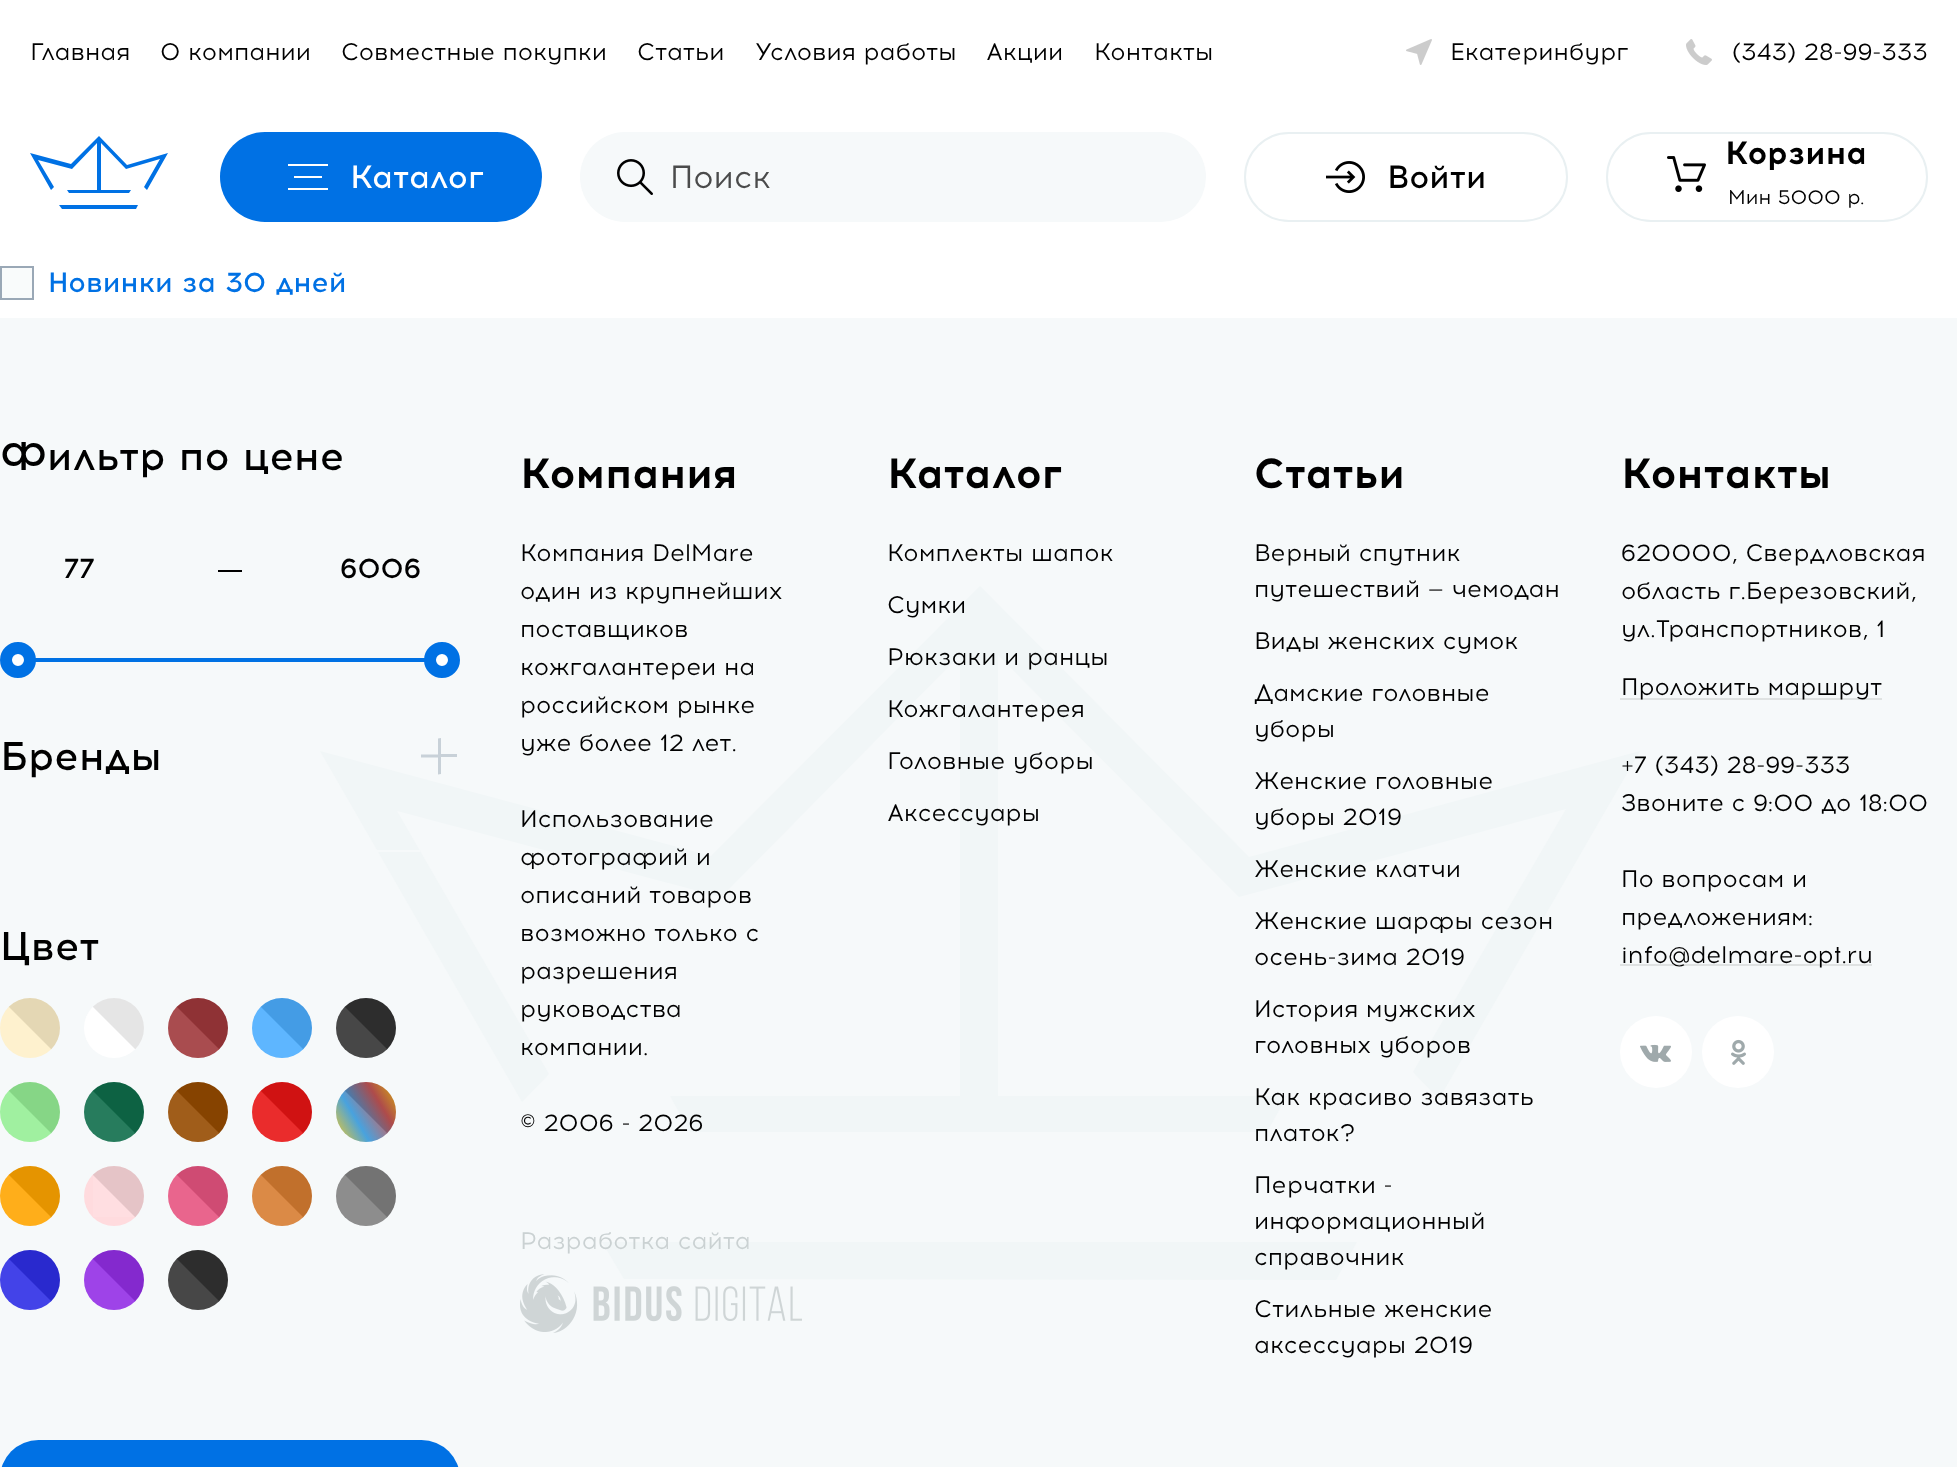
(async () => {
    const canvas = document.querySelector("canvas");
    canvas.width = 1957;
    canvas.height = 1467;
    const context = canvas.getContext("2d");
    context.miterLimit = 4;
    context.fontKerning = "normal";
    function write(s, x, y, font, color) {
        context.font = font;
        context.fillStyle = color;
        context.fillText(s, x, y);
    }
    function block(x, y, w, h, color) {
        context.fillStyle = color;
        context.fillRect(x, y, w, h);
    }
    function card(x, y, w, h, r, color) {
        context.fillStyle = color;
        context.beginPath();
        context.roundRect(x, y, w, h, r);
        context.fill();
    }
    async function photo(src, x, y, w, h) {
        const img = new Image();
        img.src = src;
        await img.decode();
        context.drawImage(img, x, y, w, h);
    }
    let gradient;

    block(0, 0, 1957, 1467, "rgb(255, 255, 255)");
    write("Главная", 30, 60, "24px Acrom", "rgb(0, 0, 0)");
    write("О компании", 160, 60, "24px Acrom", "rgb(0, 0, 0)");
    write("Совместные покупки", 341, 60, "24px Acrom", "rgb(0, 0, 0)");
    write("Статьи", 637, 60, "24px Acrom", "rgb(0, 0, 0)");
    write("Условия работы", 755, 60, "24px Acrom", "rgb(0, 0, 0)");
    write("Акции", 986, 60, "24px Acrom", "rgb(0, 0, 0)");
    write("Контакты", 1094, 60, "24px Acrom", "rgb(0, 0, 0)");
    await photo("media/1.png", 1406, 39, 26, 26);
    write("Екатеринбург", 1450, 60, "24px Acrom", "rgb(0, 0, 0)");
    await photo("media/2.png", 1686, 39, 26, 26);
    write("(343) 28-99-333", 1732, 60, "24px Acrom", "rgb(0, 0, 0)");
    context.fillStyle = "rgb(0, 113, 228)";
    context.beginPath();
    context.moveTo(144, 187);
    context.lineTo(160, 159);
    context.lineTo(126, 169);
    context.lineTo(101, 143);
    context.lineTo(101, 190);
    context.lineTo(131, 190);
    context.lineTo(129, 193);
    context.lineTo(69, 193);
    context.lineTo(67, 190);
    context.lineTo(97, 190);
    context.lineTo(97, 143);
    context.lineTo(72, 169);
    context.lineTo(38, 160);
    context.lineTo(54, 187);
    context.lineTo(51, 190);
    context.lineTo(30, 153);
    context.lineTo(71, 164);
    context.lineTo(99, 136);
    context.lineTo(127, 165);
    context.lineTo(168, 153);
    context.lineTo(147, 190);
    context.closePath();
    context.moveTo(59, 205);
    context.lineTo(62, 209);
    context.lineTo(136, 209);
    context.lineTo(138, 205);
    context.closePath();
    context.fill("evenodd");
    card(220, 132, 322, 90, 45, "rgb(0, 113, 228)");
    block(294, 176, 28, 2, "rgb(255, 255, 255)");
    block(288, 164, 40, 2, "rgb(255, 255, 255)");
    block(288, 188, 40, 2, "rgb(255, 255, 255)");
    write("Каталог", 350, 188, "500 32px Acrom", "rgb(255, 255, 255)");
    card(580, 132, 626, 90, 45, "rgb(246, 249, 250)");
    await photo("media/3.png", 617, 159, 36, 36);
    write("Поиск", 670, 188, "32px Acrom", "rgb(74, 75, 75)");
    context.beginPath();
    context.roundRect(1245, 133, 322, 88, 44);
    context.strokeStyle = "rgb(233, 240, 242)";
    context.lineWidth = 2;
    context.stroke();
    await photo("media/4.png", 1326, 161, 39, 32);
    write("Войти", 1387, 188, "500 32px Acrom", "rgb(0, 0, 0)");
    context.beginPath();
    context.roundRect(1607, 133, 320, 88, 44);
    context.stroke();
    await photo("media/5.png", 1667, 156, 39, 36);
    write("Корзина", 1725, 164, "bold 32px Acrom", "rgb(0, 0, 0)");
    write("Мин 5000 р.", 1728, 204, "20px Acrom", "rgb(0, 0, 0)");
    context.fillStyle = "rgb(249, 251, 251)";
    context.beginPath();
    context.rect(1, 267, 32, 32);
    context.fill();
    context.strokeStyle = "rgb(154, 168, 182)";
    context.stroke();
    write("Новинки за 30 дней", 48, 292, "500 28px Acrom", "rgb(0, 113, 228)");
    block(0, 318, 1957, 1149, "rgb(246, 249, 250)");
    write("Фильтр по цене", 0, 470, "500 40px Acrom", "rgb(0, 0, 0)");
    write("77", 64, 578, "500 28px Acrom", "rgb(0, 0, 0)");
    block(218, 570, 24, 2, "rgb(0, 0, 0)");
    write("6006", 340, 578, "500 28px Acrom", "rgb(0, 0, 0)");
    context.fillStyle = "rgb(241, 246, 247)";
    context.beginPath();
    context.moveTo(1413, 1072);
    context.lineTo(1566, 809);
    context.lineTo(1239, 897);
    context.lineTo(998, 655);
    context.lineTo(998, 1096);
    context.lineTo(1287, 1096);
    context.lineTo(1267, 1132);
    context.lineTo(690, 1132);
    context.lineTo(670, 1096);
    context.lineTo(960, 1096);
    context.lineTo(960, 655);
    context.lineTo(721, 897);
    context.lineTo(397, 811);
    context.lineTo(549, 1074);
    context.lineTo(522, 1102);
    context.lineTo(320, 751);
    context.lineTo(711, 856);
    context.lineTo(980, 586);
    context.lineTo(1249, 857);
    context.lineTo(1640, 751);
    context.lineTo(1439, 1099);
    context.closePath();
    context.moveTo(602, 1242);
    context.lineTo(624, 1279);
    context.lineTo(1336, 1280);
    context.lineTo(1357, 1242);
    context.closePath();
    context.fill("evenodd");
    block(35, 658, 390, 4, "rgb(0, 113, 228)");
    context.fillStyle = "rgb(255, 255, 255)";
    context.beginPath();
    context.arc(18, 660, 12, 0, Math.PI * 2);
    context.fill();
    context.strokeStyle = "rgb(0, 113, 228)";
    context.lineWidth = 12;
    context.stroke();
    context.beginPath();
    context.arc(442, 660, 12, 0, Math.PI * 2);
    context.fill();
    context.stroke();
    block(377, 850, 43, 2, "rgb(246, 249, 250)");
    write("Бренды", 0, 770, "500 40px Acrom", "rgb(0, 0, 0)");
    context.fillStyle = "rgb(200, 209, 216)";
    context.beginPath();
    context.moveTo(457, 754);
    context.lineTo(457, 757);
    context.lineTo(441, 757);
    context.lineTo(441, 774);
    context.lineTo(438, 774.5);
    context.lineTo(438, 757.5);
    context.lineTo(421, 757.5);
    context.lineTo(421, 754.5);
    context.lineTo(438, 754.5);
    context.lineTo(438, 738.5);
    context.lineTo(441, 738);
    context.lineTo(441, 754);
    context.closePath();
    context.fill("evenodd");
    write("Цвет", 0, 960, "500 40px Acrom", "rgb(0, 0, 0)");
    context.fillStyle = "rgb(254, 240, 201)";
    context.beginPath();
    context.arc(30, 1028, 30, 0, Math.PI * 2);
    context.fill();
    await photo("media/6.png", 0, 998, 60, 60);
    context.fillStyle = "rgb(255, 255, 255)";
    context.beginPath();
    context.arc(114, 1028, 30, 0, Math.PI * 2);
    context.fill();
    await photo("media/7.png", 93, 998, 51, 51);
    context.fillStyle = "rgb(160, 56, 59)";
    context.beginPath();
    context.arc(198, 1028, 30, 0, Math.PI * 2);
    context.fill();
    await photo("media/8.png", 168, 998, 60, 60);
    context.fillStyle = "rgb(76, 174, 255)";
    context.beginPath();
    context.arc(282, 1028, 30, 0, Math.PI * 2);
    context.fill();
    await photo("media/9.png", 252, 998, 60, 60);
    context.fillStyle = "rgb(51, 51, 51)";
    context.beginPath();
    context.arc(366, 1028, 30, 0, Math.PI * 2);
    context.fill();
    await photo("media/10.png", 336, 998, 60, 60);
    context.fillStyle = "rgb(150, 239, 150)";
    context.beginPath();
    context.arc(30, 1112, 30, 0, Math.PI * 2);
    context.fill();
    await photo("media/11.png", 0, 1082, 60, 60);
    context.fillStyle = "rgb(15, 110, 75)";
    context.beginPath();
    context.arc(114, 1112, 30, 0, Math.PI * 2);
    context.fill();
    await photo("media/12.png", 84, 1082, 60, 60);
    context.fillStyle = "rgb(150, 75, 0)";
    context.beginPath();
    context.arc(198, 1112, 30, 0, Math.PI * 2);
    context.fill();
    await photo("media/13.png", 168, 1082, 60, 60);
    context.fillStyle = "rgb(232, 21, 21)";
    context.beginPath();
    context.arc(282, 1112, 30, 0, Math.PI * 2);
    context.fill();
    await photo("media/14.png", 252, 1082, 60, 60);
    gradient = context.createLinearGradient(331, 1133, 401, 1091);
    gradient.addColorStop(0, "rgb(241, 196, 15)");
    gradient.addColorStop(0.35, "rgb(52, 152, 219)");
    gradient.addColorStop(0.7, "rgb(194, 84, 84)");
    gradient.addColorStop(1, "rgb(239, 194, 18)");
    context.fillStyle = gradient;
    context.beginPath();
    context.arc(366, 1112, 30, 0, Math.PI * 2);
    context.fill();
    await photo("media/15.png", 336, 1082, 60, 60);
    context.fillStyle = "rgb(255, 165, 0)";
    context.beginPath();
    context.arc(30, 1196, 30, 0, Math.PI * 2);
    context.fill();
    await photo("media/16.png", 0, 1166, 60, 60);
    context.fillStyle = "rgb(255, 219, 222)";
    context.beginPath();
    context.arc(114, 1196, 30, 0, Math.PI * 2);
    context.fill();
    await photo("media/17.png", 93, 1166, 51, 51);
    context.fillStyle = "rgb(231, 84, 128)";
    context.beginPath();
    context.arc(198, 1196, 30, 0, Math.PI * 2);
    context.fill();
    await photo("media/18.png", 168, 1166, 60, 60);
    context.fillStyle = "rgb(215, 125, 49)";
    context.beginPath();
    context.arc(282, 1196, 30, 0, Math.PI * 2);
    context.fill();
    await photo("media/19.png", 252, 1166, 60, 60);
    context.fillStyle = "rgb(128, 128, 128)";
    context.beginPath();
    context.arc(366, 1196, 30, 0, Math.PI * 2);
    context.fill();
    await photo("media/20.png", 336, 1166, 60, 60);
    context.fillStyle = "rgb(46, 46, 230)";
    context.beginPath();
    context.arc(30, 1280, 30, 0, Math.PI * 2);
    context.fill();
    await photo("media/21.png", 0, 1250, 60, 60);
    context.fillStyle = "rgb(147, 46, 230)";
    context.beginPath();
    context.arc(114, 1280, 30, 0, Math.PI * 2);
    context.fill();
    await photo("media/22.png", 84, 1250, 60, 60);
    context.fillStyle = "rgb(51, 51, 51)";
    context.beginPath();
    context.arc(198, 1280, 30, 0, Math.PI * 2);
    context.fill();
    await photo("media/23.png", 168, 1250, 60, 60);
    card(0, 1440, 460, 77, 50, "rgb(0, 113, 228)");
    write("Компания", 520, 488, "bold 42px Acrom", "rgb(0, 0, 0)");
    write("Компания DelMare", 520, 561, "24px Acrom", "rgb(0, 0, 0)");
    write("один из крупнейших", 520, 599, "24px Acrom", "rgb(0, 0, 0)");
    write("поставщиков", 520, 637, "24px Acrom", "rgb(0, 0, 0)");
    write("кожгалантереи на", 520, 675, "24px Acrom", "rgb(0, 0, 0)");
    write("российском рынке", 520, 713, "24px Acrom", "rgb(0, 0, 0)");
    write("уже более 12 лет.", 520, 751, "24px Acrom", "rgb(0, 0, 0)");
    write("Использование", 520, 827, "24px Acrom", "rgb(0, 0, 0)");
    write("фотографий и", 520, 865, "24px Acrom", "rgb(0, 0, 0)");
    write("описаний товаров", 520, 903, "24px Acrom", "rgb(0, 0, 0)");
    write("возможно только с", 520, 941, "24px Acrom", "rgb(0, 0, 0)");
    write("разрешения", 520, 979, "24px Acrom", "rgb(0, 0, 0)");
    write("руководства", 520, 1017, "24px Acrom", "rgb(0, 0, 0)");
    write("компании.", 520, 1055, "24px Acrom", "rgb(0, 0, 0)");
    write("© 2006 - 2026", 520, 1131, "24px Acrom", "rgb(0, 0, 0)");
    write("Разработка сайта", 520, 1249, "24px Acrom", "rgb(202, 209, 210)");
    await photo("media/24.png", 520, 1274, 282, 59);
    write("Каталог", 887, 488, "bold 42px Acrom", "rgb(0, 0, 0)");
    write("Комплекты шапок", 887, 561, "24px Acrom", "rgb(0, 0, 0)");
    write("Сумки", 887, 613, "24px Acrom", "rgb(0, 0, 0)");
    write("Рюкзаки и ранцы", 887, 665, "24px Acrom", "rgb(0, 0, 0)");
    write("Кожгалантерея", 887, 717, "24px Acrom", "rgb(0, 0, 0)");
    write("Головные уборы", 887, 769, "24px Acrom", "rgb(0, 0, 0)");
    write("Аксессуары", 887, 821, "24px Acrom", "rgb(0, 0, 0)");
    write("Статьи", 1254, 488, "bold 42px Acrom", "rgb(0, 0, 0)");
    write("Верный спутник", 1254, 561, "24px Acrom", "rgb(0, 0, 0)");
    write("путешествий — чемодан", 1254, 597, "24px Acrom", "rgb(0, 0, 0)");
    write("Виды женских сумок", 1254, 649, "24px Acrom", "rgb(0, 0, 0)");
    write("Дамские головные", 1254, 701, "24px Acrom", "rgb(0, 0, 0)");
    write("уборы", 1254, 737, "24px Acrom", "rgb(0, 0, 0)");
    write("Женские головные", 1254, 789, "24px Acrom", "rgb(0, 0, 0)");
    write("уборы 2019", 1254, 825, "24px Acrom", "rgb(0, 0, 0)");
    write("Женские клатчи", 1254, 877, "24px Acrom", "rgb(0, 0, 0)");
    write("Женские шарфы сезон", 1254, 929, "24px Acrom", "rgb(0, 0, 0)");
    write("осень-зима 2019", 1254, 965, "24px Acrom", "rgb(0, 0, 0)");
    write("История мужских", 1254, 1017, "24px Acrom", "rgb(0, 0, 0)");
    write("головных уборов", 1254, 1053, "24px Acrom", "rgb(0, 0, 0)");
    write("Как красиво завязать", 1254, 1105, "24px Acrom", "rgb(0, 0, 0)");
    write("платок?", 1254, 1141, "24px Acrom", "rgb(0, 0, 0)");
    write("Перчатки -", 1254, 1193, "24px Acrom", "rgb(0, 0, 0)");
    write("информационный", 1254, 1229, "24px Acrom", "rgb(0, 0, 0)");
    write("справочник", 1254, 1265, "24px Acrom", "rgb(0, 0, 0)");
    write("Стильные женские", 1254, 1317, "24px Acrom", "rgb(0, 0, 0)");
    write("аксессуары 2019", 1254, 1353, "24px Acrom", "rgb(0, 0, 0)");
    write("Контакты", 1621, 488, "bold 42px Acrom", "rgb(0, 0, 0)");
    write("620000, Свердловская", 1621, 561, "24px Acrom", "rgb(0, 0, 0)");
    write("область г.Березовский,", 1621, 599, "24px Acrom", "rgb(0, 0, 0)");
    write("ул.Транспортников, 1", 1621, 637, "24px Acrom", "rgb(0, 0, 0)");
    block(1620, 698, 262, 2, "rgb(223, 226, 226)");
    write("Проложить маршрут", 1621, 695, "24px Acrom", "rgb(0, 0, 0)");
    write("+7 (343) 28-99-333", 1621, 773, "24px Acrom", "rgb(0, 0, 0)");
    write("Звоните с 9:00 до 18:00", 1621, 811, "24px Acrom", "rgb(0, 0, 0)");
    write("По вопросам и", 1621, 887, "24px Acrom", "rgb(0, 0, 0)");
    write("предложениям:", 1621, 925, "24px Acrom", "rgb(0, 0, 0)");
    block(1620, 964, 252, 2, "rgb(223, 226, 226)");
    write("info@delmare-opt.ru", 1621, 963, "24px Acrom", "rgb(0, 0, 0)");
    context.fillStyle = "rgb(255, 255, 255)";
    context.beginPath();
    context.arc(1656, 1052, 36, 0, Math.PI * 2);
    context.fill();
    await photo("media/25.png", 1640, 1044, 31, 18);
    context.beginPath();
    context.arc(1738, 1052, 36, 0, Math.PI * 2);
    context.fill();
    await photo("media/26.png", 1731, 1039, 15, 26);
})();
